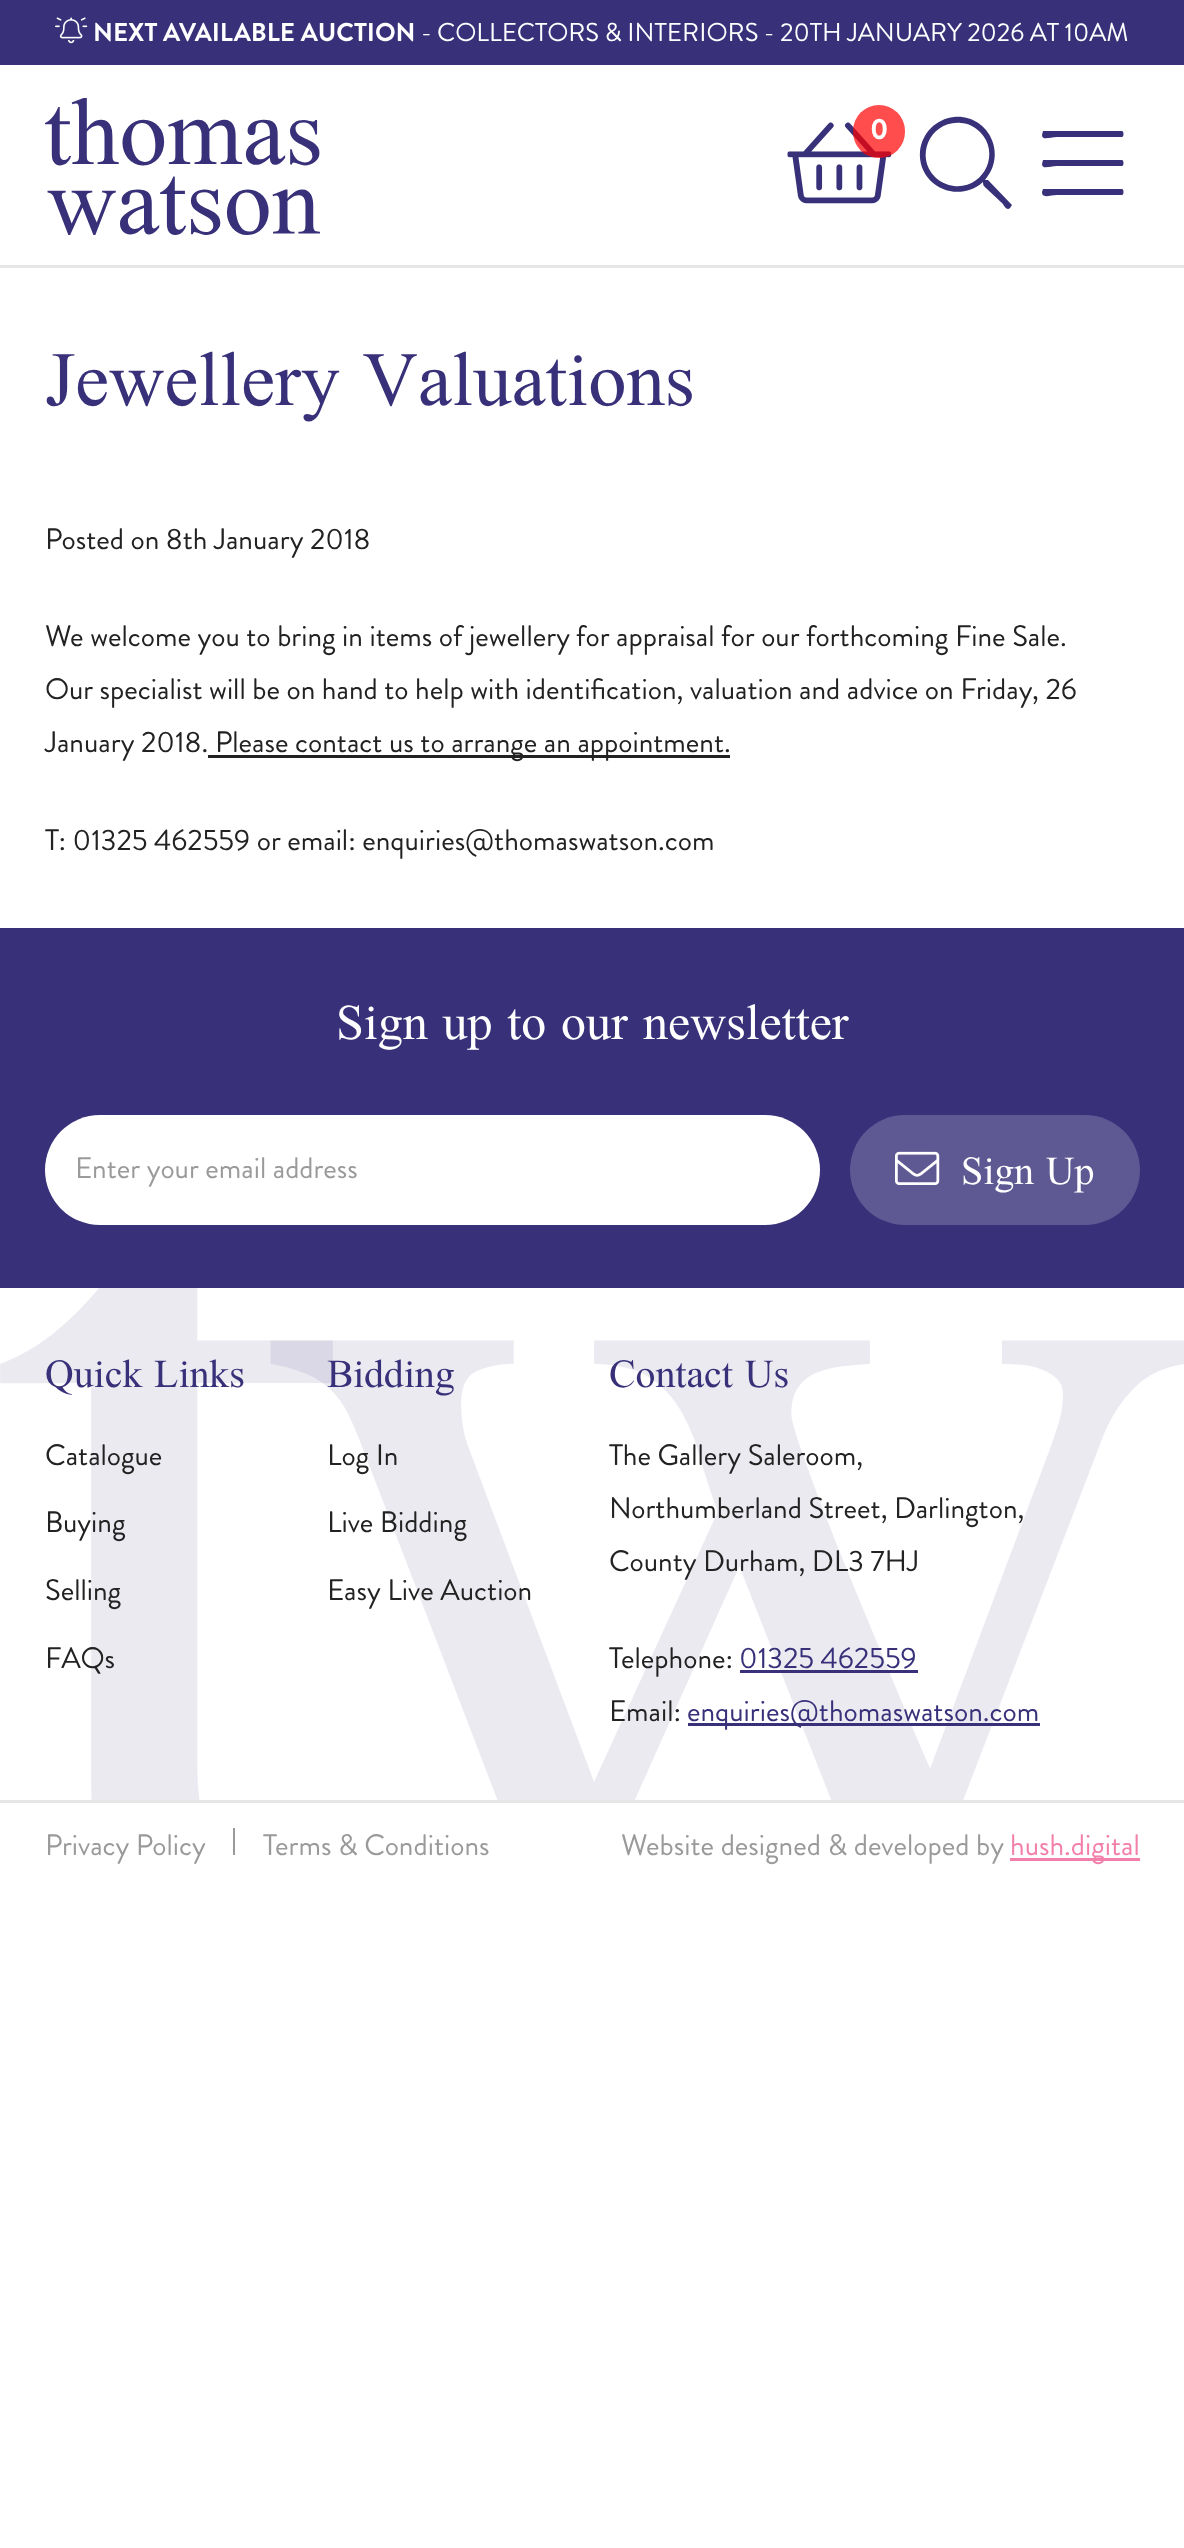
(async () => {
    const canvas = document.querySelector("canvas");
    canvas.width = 1184;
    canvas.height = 2548;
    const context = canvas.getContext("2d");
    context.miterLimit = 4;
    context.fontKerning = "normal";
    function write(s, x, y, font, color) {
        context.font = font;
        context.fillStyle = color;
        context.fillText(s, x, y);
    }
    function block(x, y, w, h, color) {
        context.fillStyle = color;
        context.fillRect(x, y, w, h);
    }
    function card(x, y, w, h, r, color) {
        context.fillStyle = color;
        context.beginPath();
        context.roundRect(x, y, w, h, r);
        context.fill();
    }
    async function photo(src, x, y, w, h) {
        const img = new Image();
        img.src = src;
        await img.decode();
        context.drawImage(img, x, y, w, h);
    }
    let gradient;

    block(0, 0, 1184, 2548, "rgb(255, 255, 255)");
    block(0, 0, 1184, 65, "rgb(56, 49, 122)");
    await photo("media/1.png", 55, 17, 33, 27);
    write("NEXT AVAILABLE AUCTION", 93, 41, "bold 25.8px Brandon Grotesque", "rgb(255, 255, 255)");
    write("-", 421, 41, "25.8px Brandon Grotesque", "rgb(255, 255, 255)");
    context.wordSpacing = "-0.25px";
    write("COLLECTORS & INTERIORS - 20TH JANUARY 2026 AT 10AM", 437, 41, "25.8px Brandon Grotesque", "rgb(255, 255, 255)");
    block(0, 265, 1184, 3, "rgb(230, 230, 230)");
    await photo("media/2.png", 45, 98, 275, 137);
    await photo("media/3.png", 787, 122, 105, 82);
    card(853, 105, 52, 53, 26, "rgba(255, 0, 0, 0.7)");
    context.wordSpacing = "0px";
    write("0", 870, 139, "bold 29.5px Brandon Grotesque", "rgb(255, 255, 255)");
    context.fillStyle = "rgb(56, 49, 122)";
    context.beginPath();
    context.moveTo(1011, 204);
    context.lineTo(1012, 205);
    context.lineTo(1010, 208);
    context.bezierCurveTo(1007, 211, 1004, 206, 1003, 204);
    context.lineTo(987, 189);
    context.bezierCurveTo(984, 186, 983, 186, 983, 182);
    context.bezierCurveTo(957, 205, 917, 185, 920, 151);
    context.bezierCurveTo(921, 142, 925, 134, 931, 128);
    context.bezierCurveTo(937, 122, 945, 118, 954, 117);
    context.bezierCurveTo(988, 114, 1008, 154, 985, 180);
    context.lineTo(987, 180);
    context.lineTo(988, 180);
    context.closePath();
    context.moveTo(935, 177);
    context.bezierCurveTo(940, 182, 947, 185, 954, 186);
    context.bezierCurveTo(984, 189, 1001, 153, 980, 132);
    context.bezierCurveTo(975, 127, 968, 123, 961, 123);
    context.bezierCurveTo(931, 120, 914, 156, 935, 177);
    context.closePath();
    context.fill();
    context.beginPath();
    context.moveTo(1122, 137);
    context.lineTo(1057, 137);
    context.bezierCurveTo(1050, 137, 1042, 141, 1042, 135);
    context.lineTo(1043, 131);
    context.lineTo(1122, 131);
    context.bezierCurveTo(1124, 131, 1124, 137, 1122, 137);
    context.closePath();
    context.moveTo(1122, 166);
    context.lineTo(1057, 166);
    context.bezierCurveTo(1050, 166, 1042, 170, 1042, 164);
    context.lineTo(1043, 160);
    context.lineTo(1122, 160);
    context.bezierCurveTo(1124, 160, 1124, 166, 1122, 166);
    context.closePath();
    context.moveTo(1122, 195);
    context.lineTo(1057, 195);
    context.bezierCurveTo(1050, 195, 1042, 199, 1042, 192);
    context.lineTo(1043, 189);
    context.lineTo(1122, 189);
    context.bezierCurveTo(1124, 189, 1124, 195, 1122, 195);
    context.closePath();
    context.fill();
    write("Jewellery Valuations", 45, 405, "84.75px Scheherazade New", "rgb(56, 49, 122)");
    write("Posted on 8th January 2018", 45, 549, "29.5px Brandon Grotesque", "rgb(34, 34, 34)");
    write("We welcome you to bring in items of jewellery", 45, 646, "29.5px Brandon Grotesque", "rgb(34, 34, 34)");
    write("for appraisal for our forthcoming Fine Sale.", 576, 646, "29.5px Brandon Grotesque", "rgb(34, 34, 34)");
    write("Our specialist will be on hand to help with identification, valuation and advice on Friday, 26", 45, 699, "29.5px Brandon Grotesque", "rgb(34, 34, 34)");
    write("January 2018.", 45, 752, "29.5px Brandon Grotesque", "rgb(34, 34, 34)");
    block(208, 755, 522, 3, "rgb(34, 34, 34)");
    write("Please contact us to arrange an appointment.", 215, 752, "29.5px Brandon Grotesque", "rgb(34, 34, 34)");
    write("T: 01325 462559 or email: enquiries@thomaswatson.com", 45, 850, "29.5px Brandon Grotesque", "rgb(34, 34, 34)");
    block(0, 928, 1184, 360, "rgb(56, 49, 122)");
    write("Sign up to our newsletter", 336, 1039, "55.25px Scheherazade New", "rgb(255, 255, 255)");
    card(45, 1115, 775, 110, 55, "rgb(255, 255, 255)");
    write("Enter your email address", 75, 1178, "29.5px Brandon Grotesque", "rgb(154, 154, 154)");
    card(850, 1115, 290, 110, 55, "rgb(94, 88, 147)");
    await photo("media/4.png", 895, 1151, 45, 34);
    write("Sign Up", 961, 1184, "44px Scheherazade New", "rgb(255, 255, 255)");
    await photo("media/5.png", 0, 1288, 1184, 512);
    write("Quick Links", 45, 1387, "44px Scheherazade New", "rgb(56, 49, 122)");
    write("Catalogue", 45, 1465, "29.5px Brandon Grotesque", "rgb(34, 34, 34)");
    write("Buying", 45, 1532, "29.5px Brandon Grotesque", "rgb(34, 34, 34)");
    write("Selling", 45, 1600, "29.5px Brandon Grotesque", "rgb(34, 34, 34)");
    write("FAQs", 45, 1668, "29.5px Brandon Grotesque", "rgb(34, 34, 34)");
    write("Bidding", 327, 1387, "44px Scheherazade New", "rgb(56, 49, 122)");
    write("Log In", 327, 1465, "29.5px Brandon Grotesque", "rgb(34, 34, 34)");
    write("Live Bidding", 327, 1532, "29.5px Brandon Grotesque", "rgb(34, 34, 34)");
    write("Easy Live Auction", 327, 1600, "29.5px Brandon Grotesque", "rgb(34, 34, 34)");
    write("Contact Us", 609, 1387, "44px Scheherazade New", "rgb(56, 49, 122)");
    write("The Gallery Saleroom,", 609, 1465, "29.5px Brandon Grotesque", "rgb(34, 34, 34)");
    write("Northumberland Street, Darlington,", 609, 1518, "29.5px Brandon Grotesque", "rgb(34, 34, 34)");
    write("County Durham, DL3 7HJ", 609, 1571, "29.5px Brandon Grotesque", "rgb(34, 34, 34)");
    write("Telephone:", 609, 1668, "29.5px Brandon Grotesque", "rgb(34, 34, 34)");
    write("01325 462559", 739, 1668, "29.5px Brandon Grotesque", "rgb(56, 49, 122)");
    block(740, 1670, 178, 3, "rgb(56, 49, 122)");
    write("Email:", 609, 1721, "29.5px Brandon Grotesque", "rgb(34, 34, 34)");
    block(688, 1723, 352, 3, "rgb(56, 49, 122)");
    write("enquiries@thomaswatson.com", 687, 1721, "29.5px Brandon Grotesque", "rgb(56, 49, 122)");
    block(0, 1800, 1184, 3, "rgb(230, 230, 230)");
    write("Privacy Policy", 45, 1855, "29.5px Brandon Grotesque", "rgb(154, 154, 154)");
    gradient = context.createLinearGradient(205, 1841, 263, 1841);
    gradient.addColorStop(0, "rgba(0, 0, 0, 0)");
    gradient.addColorStop(0.48, "rgba(154, 154, 154, 0)");
    gradient.addColorStop(0.48, "rgb(154, 154, 154)");
    gradient.addColorStop(0.52, "rgb(154, 154, 154)");
    gradient.addColorStop(0.52, "rgba(154, 154, 154, 0)");
    context.fillStyle = gradient;
    context.fillRect(233, 1828, 2, 27);
    write("Terms & Conditions", 263, 1855, "29.5px Brandon Grotesque", "rgb(154, 154, 154)");
    write("Website designed & developed by", 621, 1855, "29.5px Brandon Grotesque", "rgb(154, 154, 154)");
    block(1010, 1858, 130, 3, "rgb(242, 128, 171)");
    write("hush.digital", 1010, 1855, "29.5px Brandon Grotesque", "rgb(242, 128, 171)");
})();
